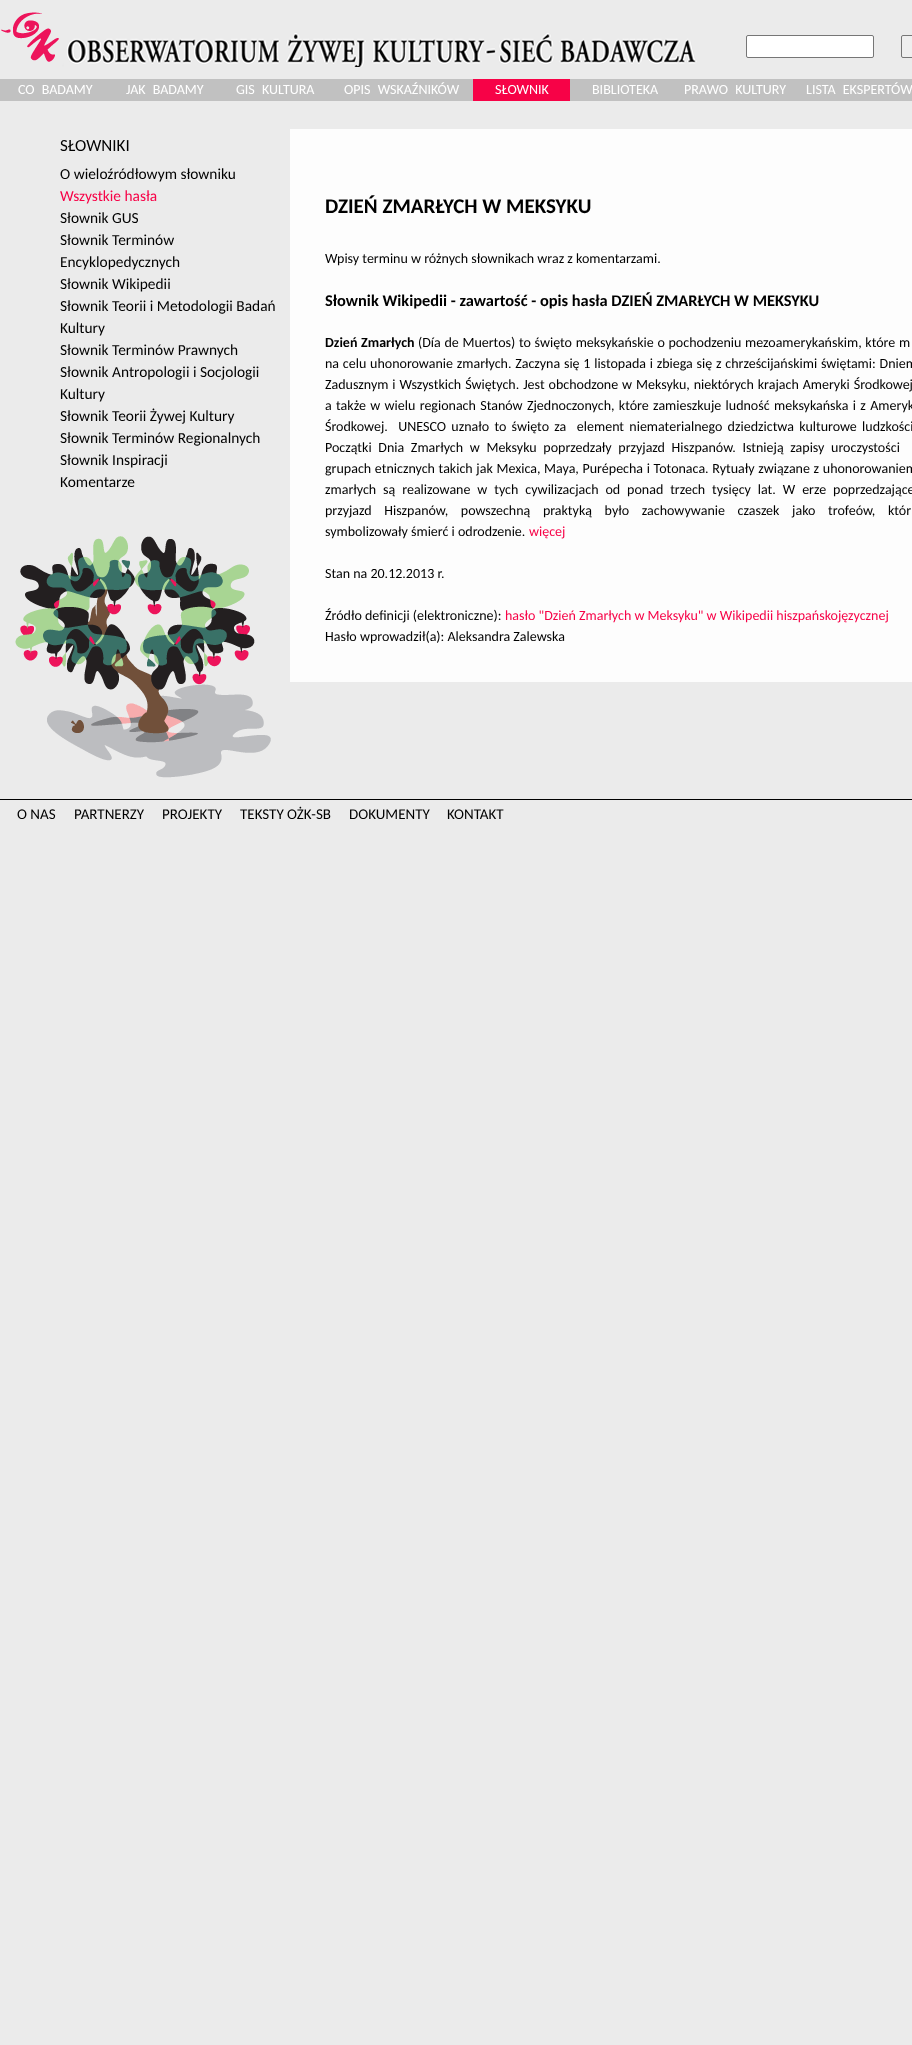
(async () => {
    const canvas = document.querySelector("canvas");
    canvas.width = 912;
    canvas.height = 2045;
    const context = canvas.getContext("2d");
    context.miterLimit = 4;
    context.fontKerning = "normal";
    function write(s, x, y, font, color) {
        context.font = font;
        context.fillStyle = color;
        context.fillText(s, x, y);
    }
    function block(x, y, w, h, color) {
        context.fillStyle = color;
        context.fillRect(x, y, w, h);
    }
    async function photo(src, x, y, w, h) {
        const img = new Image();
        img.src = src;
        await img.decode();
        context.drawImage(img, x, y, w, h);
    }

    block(0, 0, 912, 2045, "rgb(235, 235, 235)");
    await photo("media/1.png", 1, 12, 696, 55);
    context.fillStyle = "rgb(255, 255, 255)";
    context.beginPath();
    context.roundRect(746.5, 35.5, 127, 22, 1.5);
    context.fill();
    context.strokeStyle = "rgb(118, 118, 118)";
    context.stroke();
    context.fillStyle = "rgb(239, 239, 239)";
    context.beginPath();
    context.roundRect(901.5, 35.5, 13, 22, 1.5);
    context.fill();
    context.stroke();
    await photo("media/2.png", 15, 536, 256, 242);
    block(0, 79, 912, 22, "rgb(193, 193, 193)");
    context.wordSpacing = "4px";
    write("CO BADAMY", 18, 94, "14px Carlito", "rgb(255, 255, 255)");
    write("JAK BADAMY", 126, 94, "14px Carlito", "rgb(255, 255, 255)");
    write("GIS KULTURA", 236, 94, "14px Carlito", "rgb(255, 255, 255)");
    write("OPIS WSKAŹNIKÓW", 344, 94, "14px Carlito", "rgb(255, 255, 255)");
    block(473, 79, 97, 22, "rgb(247, 2, 71)");
    context.wordSpacing = "0px";
    write("SŁOWNIK", 495, 94, "14px Carlito", "rgb(255, 255, 255)");
    write("BIBLIOTEKA", 592, 94, "14px Carlito", "rgb(255, 255, 255)");
    context.wordSpacing = "4px";
    write("PRAWO KULTURY", 684, 94, "14px Carlito", "rgb(255, 255, 255)");
    write("LISTA EKSPERTÓW", 806, 94, "14px Carlito", "rgb(255, 255, 255)");
    context.wordSpacing = "0px";
    write("SŁOWNIKI", 60, 151, "17px Carlito", "rgb(0, 0, 0)");
    write("O wieloźródłowym słowniku", 60, 179, "15.4px Carlito", "rgb(0, 0, 0)");
    write("Wszystkie hasła", 60, 201, "15.4px Carlito", "rgb(247, 2, 71)");
    write("Słownik GUS", 60, 223, "15.4px Carlito", "rgb(0, 0, 0)");
    write("Słownik Terminów", 60, 245, "15.4px Carlito", "rgb(0, 0, 0)");
    write("Encyklopedycznych", 60, 267, "15.4px Carlito", "rgb(0, 0, 0)");
    write("Słownik Wikipedii", 60, 289, "15.4px Carlito", "rgb(0, 0, 0)");
    write("Słownik Teorii i Metodologii Badań", 60, 311, "15.4px Carlito", "rgb(0, 0, 0)");
    write("Kultury", 60, 333, "15.4px Carlito", "rgb(0, 0, 0)");
    write("Słownik Terminów Prawnych", 60, 355, "15.4px Carlito", "rgb(0, 0, 0)");
    write("Słownik Antropologii i Socjologii", 60, 377, "15.4px Carlito", "rgb(0, 0, 0)");
    write("Kultury", 60, 399, "15.4px Carlito", "rgb(0, 0, 0)");
    write("Słownik Teorii Żywej Kultury", 60, 421, "15.4px Carlito", "rgb(0, 0, 0)");
    write("Słownik Terminów Regionalnych", 60, 443, "15.4px Carlito", "rgb(0, 0, 0)");
    write("Słownik Inspiracji", 60, 465, "15.4px Carlito", "rgb(0, 0, 0)");
    write("Komentarze", 60, 487, "15.4px Carlito", "rgb(0, 0, 0)");
    block(290, 129, 622, 553, "rgb(253, 253, 253)");
    write("DZIEŃ ZMARŁYCH W MEKSYKU", 325, 213, "bold 21px Carlito", "rgb(0, 0, 0)");
    write("Wpisy terminu w różnych słownikach wraz z komentarzami.", 325, 263, "14px Carlito", "rgb(0, 0, 0)");
    write("Słownik Wikipedii - zawartość - opis hasła DZIEŃ ZMARŁYCH W MEKSYKU", 325, 306, "bold 16.4px Carlito", "rgb(0, 0, 0)");
    context.wordSpacing = "0.5px";
    write("Dzień Zmarłych", 325, 347, "bold 14px Carlito", "rgb(0, 0, 0)");
    write("(Día de Muertos) to święto meksykańskie o pochodzeniu mezoamerykańskim, które m", 418, 347, "14px Carlito", "rgb(0, 0, 0)");
    context.wordSpacing = "0.6px";
    write("na celu uhonorowanie zmarłych. Zaczyna się 1 listopada i zbiega się z chrześcijańskimi świętami: Dniem", 325, 368, "14px Carlito", "rgb(0, 0, 0)");
    context.wordSpacing = "0.75px";
    write("Zadusznym i Wszystkich Świętych. Jest obchodzone w Meksyku, niektórych krajach Ameryki Środkowej", 325, 389, "14px Carlito", "rgb(0, 0, 0)");
    context.wordSpacing = "1.2px";
    write("a także w wielu regionach Stanów Zjednoczonych, które zamieszkuje ludność meksykańska i z Ameryk", 325, 410, "14px Carlito", "rgb(0, 0, 0)");
    context.wordSpacing = "2.1px";
    write("Środkowej.  UNESCO uznało to święto za  element niematerialnego dziedzictwa kulturowe ludzkości", 325, 431, "14px Carlito", "rgb(0, 0, 0)");
    context.wordSpacing = "3.5px";
    write("Początki Dnia Zmarłych w Meksyku poprzedzały przyjazd Hiszpanów. Istnieją zapisy uroczystości", 325, 452, "14px Carlito", "rgb(0, 0, 0)");
    context.wordSpacing = "0.5px";
    write("grupach etnicznych takich jak Mexica, Maya, Purépecha i Totonaca. Rytuały związane z uhonorowaniem", 325, 473, "14px Carlito", "rgb(0, 0, 0)");
    context.wordSpacing = "3.75px";
    write("zmarłych są realizowane w tych cywilizacjach od ponad trzech tysięcy lat. W erze poprzedzające", 325, 494, "14px Carlito", "rgb(0, 0, 0)");
    context.wordSpacing = "9.5px";
    write("przyjazd Hiszpanów, powszechną praktyką było zachowywanie czaszek jako trofeów, któr", 325, 515, "14px Carlito", "rgb(0, 0, 0)");
    context.wordSpacing = "0px";
    write("symbolizowały śmierć i odrodzenie.", 325, 536, "14px Carlito", "rgb(0, 0, 0)");
    write("więcej", 529, 536, "14px Carlito", "rgb(247, 2, 71)");
    write("Stan na 20.12.2013 r.", 325, 578, "14px Carlito", "rgb(0, 0, 0)");
    write("Źródło definicji (elektroniczne):", 325, 620, "14px Carlito", "rgb(0, 0, 0)");
    write("hasło \"Dzień Zmarłych w Meksyku\" w Wikipedii hiszpańskojęzycznej", 505, 620, "14px Carlito", "rgb(247, 2, 71)");
    write("Hasło wprowadził(a): Aleksandra Zalewska", 325, 641, "14px Carlito", "rgb(0, 0, 0)");
    block(0, 799, 912, 1, "rgb(0, 0, 0)");
    write("O NAS", 17, 819, "15px Carlito", "rgb(0, 0, 0)");
    write("PARTNERZY", 74, 819, "15px Carlito", "rgb(0, 0, 0)");
    write("PROJEKTY", 162, 819, "15px Carlito", "rgb(0, 0, 0)");
    write("TEKSTY OŻK-SB", 240, 819, "15px Carlito", "rgb(0, 0, 0)");
    write("DOKUMENTY", 349, 819, "15px Carlito", "rgb(0, 0, 0)");
    write("KONTAKT", 447, 819, "15px Carlito", "rgb(0, 0, 0)");
})();
